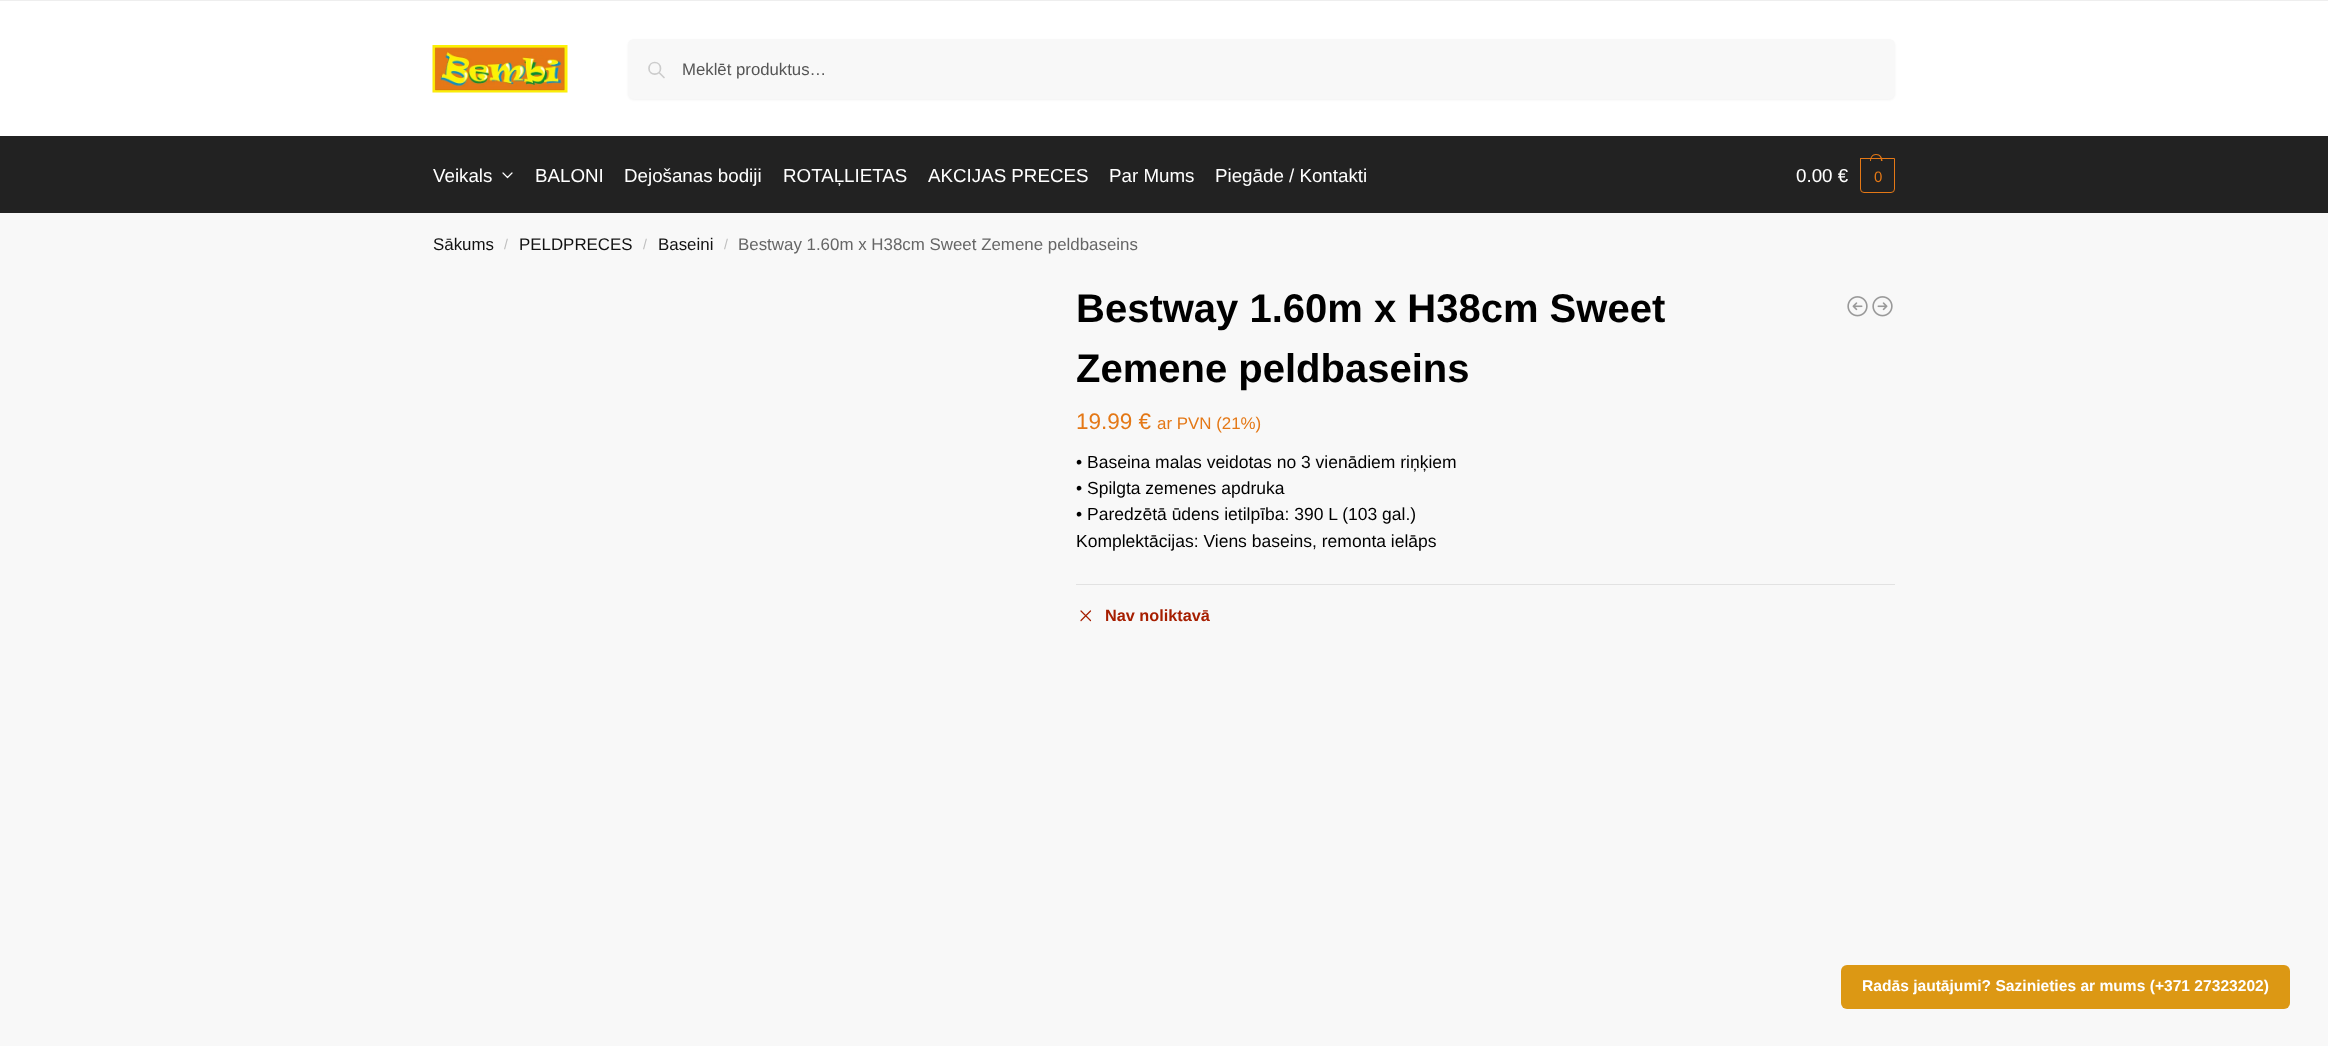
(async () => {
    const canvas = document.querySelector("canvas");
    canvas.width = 2346;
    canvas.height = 1046;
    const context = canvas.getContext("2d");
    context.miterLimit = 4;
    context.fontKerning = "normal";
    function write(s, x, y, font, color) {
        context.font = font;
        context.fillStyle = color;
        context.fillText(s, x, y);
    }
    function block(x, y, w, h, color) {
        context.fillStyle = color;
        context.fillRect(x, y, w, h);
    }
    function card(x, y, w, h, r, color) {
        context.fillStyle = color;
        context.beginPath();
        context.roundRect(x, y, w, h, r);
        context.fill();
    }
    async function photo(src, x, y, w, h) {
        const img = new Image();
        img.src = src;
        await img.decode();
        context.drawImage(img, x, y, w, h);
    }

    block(0, 0, 2346, 1046, "rgb(255, 255, 255)");
    block(0, 0, 2328, 1, "rgb(238, 238, 238)");
    await photo("media/1.png", 432, 45, 136, 48);
    context.fillStyle = "rgba(0, 0, 0, 0.05)";
    context.filter = "blur(1px)";
    context.beginPath();
    context.roundRect(628, 40, 1267, 60, 6);
    context.fill();
    context.filter = "none";
    card(628, 39, 1267, 60, 6, "rgb(248, 248, 248)");
    context.beginPath();
    context.moveTo(664, 77.5);
    context.lineTo(659, 72.5);
    context.moveTo(660.5, 68.5);
    context.bezierCurveTo(660.5, 76, 649, 76, 649, 68.5);
    context.bezierCurveTo(649, 60.5, 660.5, 60.5, 660.5, 68.5);
    context.closePath();
    context.strokeStyle = "rgb(204, 204, 204)";
    context.lineWidth = 1.7;
    context.lineCap = "round";
    context.lineJoin = "round";
    context.stroke();
    write("Meklēt produktus…", 682, 75, "16.75px Liberation Sans", "rgb(85, 85, 85)");
    block(0, 136, 2328, 77, "rgb(34, 34, 34)");
    write("Veikals", 433, 182, "18.75px Liberation Sans", "rgb(255, 255, 255)");
    context.beginPath();
    context.moveTo(512, 173);
    context.lineTo(507.5, 177.5);
    context.lineTo(503, 173);
    context.strokeStyle = "rgb(255, 255, 255)";
    context.lineWidth = 1.2;
    context.stroke();
    write("BALONI", 535, 182, "18.75px Liberation Sans", "rgb(255, 255, 255)");
    write("Dejošanas bodiji", 624, 182, "18.75px Liberation Sans", "rgb(255, 255, 255)");
    write("ROTAĻLIETAS", 783, 182, "18.75px Liberation Sans", "rgb(255, 255, 255)");
    write("AKCIJAS PRECES", 928, 182, "18.75px Liberation Sans", "rgb(255, 255, 255)");
    write("Par Mums", 1109, 182, "18.75px Liberation Sans", "rgb(255, 255, 255)");
    write("Piegāde / Kontakti", 1215, 182, "18.75px Liberation Sans", "rgb(255, 255, 255)");
    write("0.00 €", 1796, 182, "18.75px Liberation Sans", "rgb(255, 255, 255)");
    context.beginPath();
    context.roundRect(1860.5, 158.5, 34, 34, [0, 0, 3.5, 3.5]);
    context.strokeStyle = "rgb(228, 120, 22)";
    context.lineWidth = 1;
    context.lineJoin = "miter";
    context.stroke();
    context.fillStyle = "rgb(228, 120, 22)";
    context.beginPath();
    context.moveTo(1876, 154);
    context.bezierCurveTo(1880.5, 154, 1882.5, 157.5, 1882.5, 161);
    context.lineTo(1870, 161);
    context.bezierCurveTo(1870, 157.5, 1872, 154, 1876, 154);
    context.closePath();
    context.moveTo(1876, 155);
    context.bezierCurveTo(1880, 155, 1881, 158, 1881, 161);
    context.lineTo(1871, 161);
    context.bezierCurveTo(1871, 158, 1872.5, 155, 1876, 155);
    context.closePath();
    context.fill("evenodd");
    context.letterSpacing = "-1px";
    write("0", 1874, 182, "15px Liberation Sans", "rgb(228, 120, 22)");
    block(0, 213, 2328, 833, "rgb(248, 248, 248)");
    context.letterSpacing = "0px";
    write("Sākums", 433, 250, "16.9px Liberation Sans", "rgb(17, 17, 17)");
    write("/", 504, 249, "14px Liberation Sans", "rgb(190, 190, 190)");
    write("PELDPRECES", 519, 250, "16.9px Liberation Sans", "rgb(17, 17, 17)");
    write("/", 643, 249, "14px Liberation Sans", "rgb(190, 190, 190)");
    write("Baseini", 658, 250, "16.9px Liberation Sans", "rgb(17, 17, 17)");
    write("/", 724, 249, "14px Liberation Sans", "rgb(190, 190, 190)");
    write("Bestway 1.60m x H38cm Sweet Zemene peldbaseins", 738, 250, "16.9px Liberation Sans", "rgb(102, 102, 102)");
    write("Bestway 1.60m x H38cm Sweet", 1076, 322, "bold 40px Liberation Sans", "rgb(0, 0, 0)");
    write("Zemene peldbaseins", 1076, 382, "bold 40px Liberation Sans", "rgb(0, 0, 0)");
    await photo("media/2.png", 1847, 296, 21, 21);
    await photo("media/3.png", 1872, 296, 21, 21);
    write("19.99 €", 1076, 429, "22.5px Liberation Sans", "rgb(228, 120, 22)");
    write("ar PVN (21%)", 1157, 429, "16.9px Liberation Sans", "rgb(228, 120, 22)");
    write("• Baseina malas veidotas no 3 vienādiem riņķiem", 1076, 468, "17.5px Liberation Sans", "rgb(0, 0, 0)");
    write("• Spilgta zemenes apdruka", 1076, 494, "17.5px Liberation Sans", "rgb(0, 0, 0)");
    write("• Paredzētā ūdens ietilpība: 390 L (103 gal.)", 1076, 520, "17.5px Liberation Sans", "rgb(0, 0, 0)");
    write("Komplektācijas: Viens baseins, remonta ielāps", 1076, 547, "17.5px Liberation Sans", "rgb(0, 0, 0)");
    block(1076, 584, 819, 1, "rgb(226, 226, 226)");
    context.beginPath();
    context.moveTo(1081, 620.5);
    context.lineTo(1090.5, 611);
    context.moveTo(1081, 611);
    context.lineTo(1090.5, 620.5);
    context.strokeStyle = "rgb(166, 30, 0)";
    context.lineWidth = 1.2;
    context.lineJoin = "round";
    context.stroke();
    write("Nav noliktavā", 1105, 621, "bold 16.25px Liberation Sans", "rgb(166, 30, 0)");
    card(1841, 965, 449, 44, 6, "rgb(220, 152, 20)");
    write("Radās jautājumi? Sazinieties ar mums (+371 27323202)", 1862, 991, "bold 15.6px Liberation Sans", "rgb(255, 255, 255)");
})();
